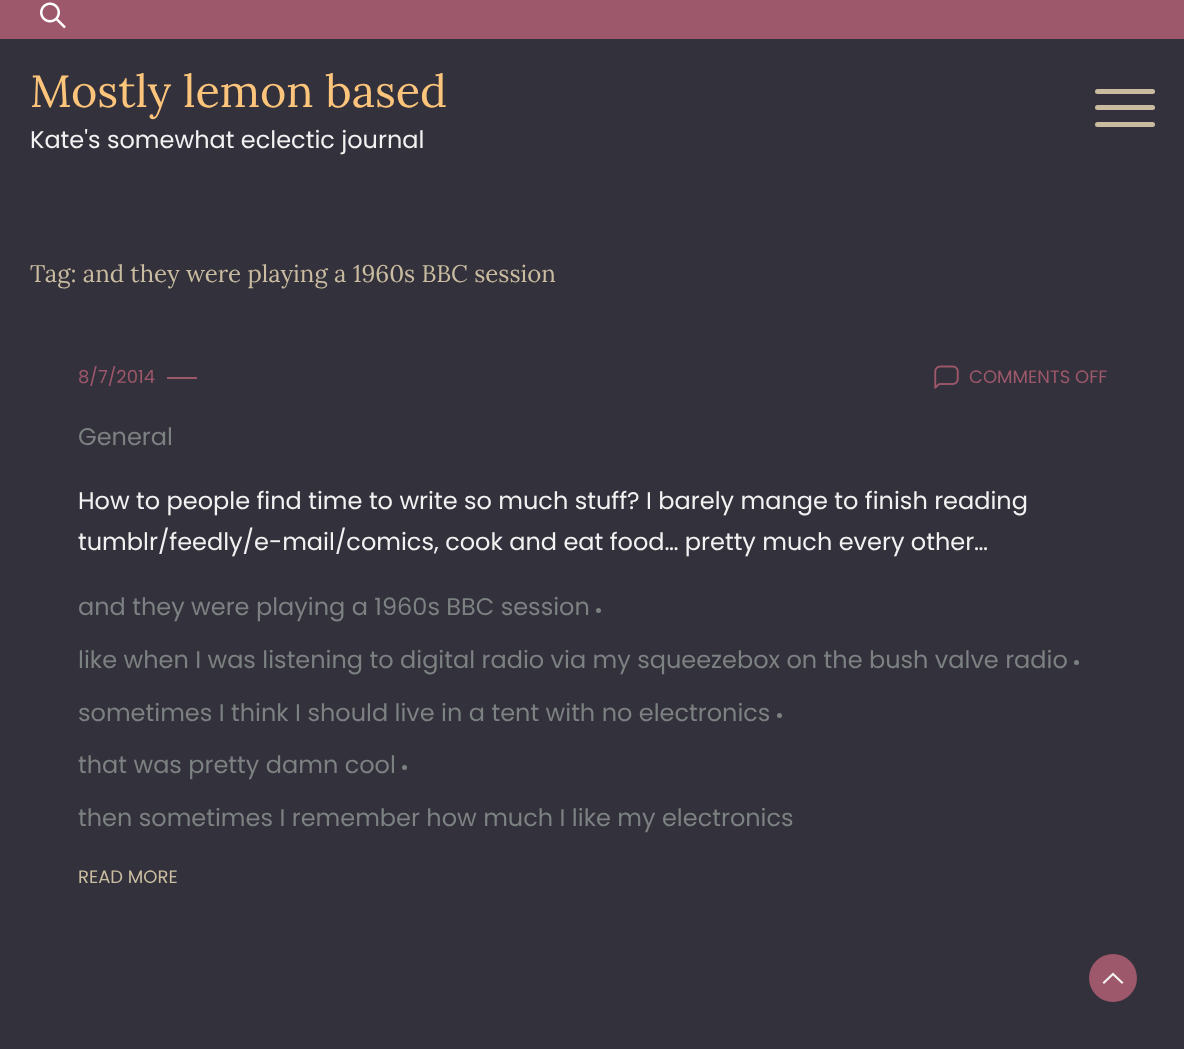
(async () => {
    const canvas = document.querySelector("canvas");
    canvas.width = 1184;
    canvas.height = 1049;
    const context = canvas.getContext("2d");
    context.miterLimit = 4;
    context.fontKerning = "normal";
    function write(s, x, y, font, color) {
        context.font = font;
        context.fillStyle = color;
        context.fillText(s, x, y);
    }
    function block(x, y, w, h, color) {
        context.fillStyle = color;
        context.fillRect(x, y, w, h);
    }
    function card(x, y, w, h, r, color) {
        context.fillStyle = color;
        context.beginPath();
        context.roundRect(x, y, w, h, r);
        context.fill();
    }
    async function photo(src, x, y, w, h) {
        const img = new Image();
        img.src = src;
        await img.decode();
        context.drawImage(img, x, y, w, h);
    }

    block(0, 0, 1184, 1049, "rgb(51, 49, 59)");
    block(0, 0, 1184, 39, "rgb(158, 88, 107)");
    await photo("media/1.png", 40, 2, 26, 27);
    write("Mostly lemon based", 30, 107, "45px Lora", "rgb(253, 197, 123)");
    write("Kate's somewhat eclectic journal", 30, 148, "24px Poppins", "rgb(242, 242, 242)");
    card(1095, 89, 60, 5, 2.5, "rgb(202, 188, 160)");
    card(1095, 105, 60, 5, 2.5, "rgb(202, 188, 160)");
    card(1095, 122, 60, 5, 2.5, "rgb(202, 188, 160)");
    write("Tag: and they were playing a 1960s BBC session", 30, 282, "24px Lora", "rgb(202, 188, 160)");
    write("8/7/2014", 78, 383, "18px Poppins", "rgb(158, 88, 107)");
    block(167, 377, 30, 2, "rgb(158, 88, 107)");
    await photo("media/2.png", 934, 365, 25, 24);
    write("COMMENTS OFF", 969, 383, "18px Poppins", "rgb(158, 88, 107)");
    write("General", 78, 445, "24px Poppins", "rgb(124, 129, 130)");
    write("How to people find time to write so much stuff? I barely mange to finish reading", 78, 509, "24px Poppins", "rgb(242, 242, 242)");
    write("tumblr/feedly/e-mail/comics, cook and eat food… pretty much every other…", 78, 550, "24px Poppins", "rgb(242, 242, 242)");
    write("and they were playing a 1960s BBC session", 78, 615, "24px Poppins", "rgb(124, 129, 130)");
    context.beginPath();
    context.arc(598.5, 610.5, 2.5, 0, Math.PI * 2);
    context.fill();
    write("like when I was listening to digital radio via my squeezebox on the bush valve radio", 78, 668, "24px Poppins", "rgb(124, 129, 130)");
    context.beginPath();
    context.arc(1076.5, 662.5, 2.5, 0, Math.PI * 2);
    context.fill();
    write("sometimes I think I should live in a tent with no electronics", 78, 721, "24px Poppins", "rgb(124, 129, 130)");
    context.beginPath();
    context.arc(779.5, 715.5, 2.5, 0, Math.PI * 2);
    context.fill();
    write("that was pretty damn cool", 78, 773, "24px Poppins", "rgb(124, 129, 130)");
    context.beginPath();
    context.arc(404.5, 767.5, 2.5, 0, Math.PI * 2);
    context.fill();
    write("then sometimes I remember how much I like my electronics", 78, 826, "24px Poppins", "rgb(124, 129, 130)");
    write("READ MORE", 78, 883, "18px Poppins", "rgb(202, 188, 160)");
    context.fillStyle = "rgb(158, 88, 107)";
    context.beginPath();
    context.arc(1113, 978, 24, 0, Math.PI * 2);
    context.fill();
    context.fillStyle = "rgb(242, 242, 242)";
    context.beginPath();
    context.moveTo(1123.5, 982.5);
    context.lineTo(1122, 984);
    context.lineTo(1113, 975.5);
    context.lineTo(1104, 984);
    context.lineTo(1102.5, 982.5);
    context.lineTo(1113, 972.5);
    context.lineTo(1123.5, 982.5);
    context.fill();
})();
